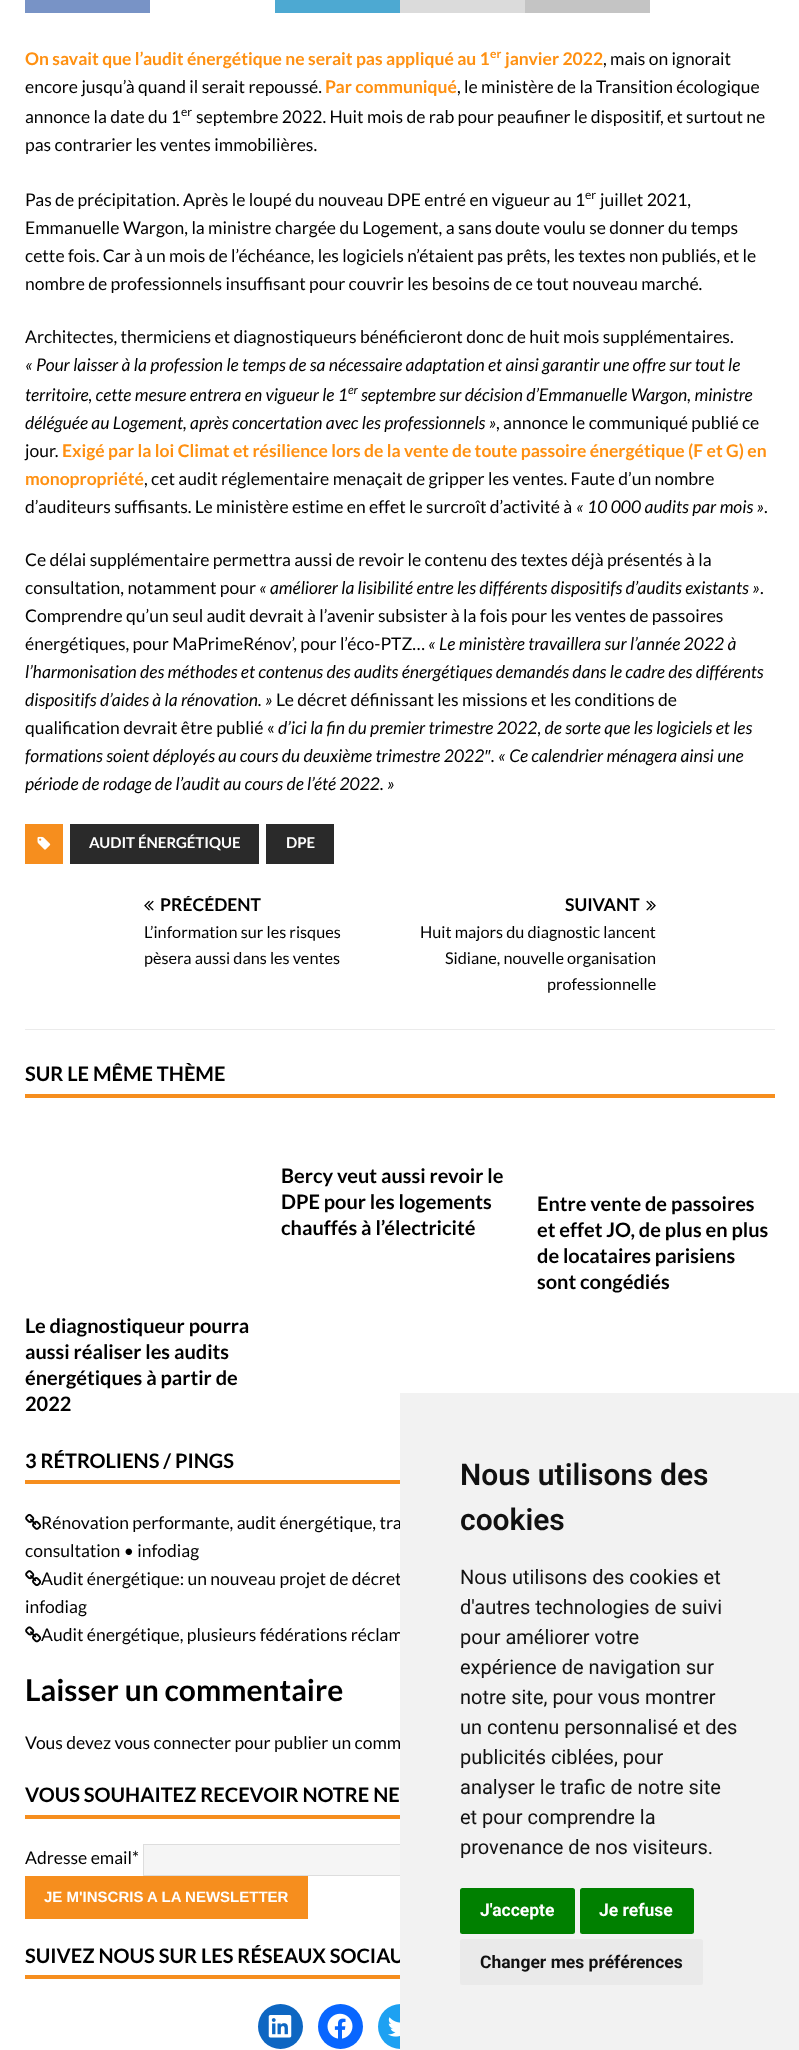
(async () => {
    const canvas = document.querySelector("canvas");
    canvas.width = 799;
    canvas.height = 2050;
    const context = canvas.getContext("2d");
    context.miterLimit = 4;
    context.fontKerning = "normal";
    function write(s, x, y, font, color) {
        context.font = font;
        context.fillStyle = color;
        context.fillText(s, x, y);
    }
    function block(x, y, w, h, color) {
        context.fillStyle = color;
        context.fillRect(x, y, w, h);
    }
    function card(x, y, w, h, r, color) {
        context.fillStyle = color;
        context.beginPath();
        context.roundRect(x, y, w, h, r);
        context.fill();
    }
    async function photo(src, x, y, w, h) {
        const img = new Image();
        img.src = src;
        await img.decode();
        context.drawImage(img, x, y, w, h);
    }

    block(0, 0, 799, 2050, "rgb(255, 255, 255)");
    block(25, 0, 125, 13, "rgb(120, 147, 198)");
    block(275, 0, 125, 13, "rgb(77, 169, 210)");
    block(400, 0, 125, 13, "rgb(219, 219, 219)");
    block(525, 0, 125, 13, "rgb(196, 196, 196)");
    write("On savait que l’audit énergétique ne serait pas appliqué au 1", 25, 65, "bold 17.5px Lato", "rgb(255, 144, 17)");
    write("er", 490, 58, "bold 12px Lato", "rgb(255, 144, 17)");
    write("janvier 2022", 505, 65, "bold 17.5px Lato", "rgb(255, 144, 17)");
    write(", mais on ignorait", 603, 65, "17.5px Lato", "rgb(0, 0, 0)");
    write("encore jusqu’à quand il serait repoussé.", 25, 93, "17.5px Lato", "rgb(0, 0, 0)");
    write("Par communiqué", 325, 93, "bold 17.5px Lato", "rgb(255, 144, 17)");
    write(", le ministère de la Transition écologique", 457, 93, "17.5px Lato", "rgb(0, 0, 0)");
    write("annonce la date du 1", 25, 123, "17.5px Lato", "rgb(0, 0, 0)");
    write("er", 181, 116, "12px Lato", "rgb(0, 0, 0)");
    write("septembre 2022. Huit mois de rab pour peaufiner le dispositif, et surtout ne", 196, 123, "17.5px Lato", "rgb(0, 0, 0)");
    write("pas contrarier les ventes immobilières.", 25, 151, "17.5px Lato", "rgb(0, 0, 0)");
    write("Pas de précipitation. Après le loupé du nouveau DPE entré en vigueur au 1", 25, 206, "17.5px Lato", "rgb(0, 0, 0)");
    write("er", 585, 199, "12px Lato", "rgb(0, 0, 0)");
    write("juillet 2021,", 600, 206, "17.5px Lato", "rgb(0, 0, 0)");
    write("Emmanuelle Wargon, la ministre chargée du Logement, a sans doute voulu se donner du temps", 25, 234, "17.5px Lato", "rgb(0, 0, 0)");
    write("cette fois. Car à un mois de l’échéance, les logiciels n’étaient pas prêts, les textes non publiés, et le", 25, 262, "17.5px Lato", "rgb(0, 0, 0)");
    write("nombre de professionnels insuffisant pour couvrir les besoins de ce tout nouveau marché.", 25, 290, "17.5px Lato", "rgb(0, 0, 0)");
    write("Architectes, thermiciens et diagnostiqueurs bénéficieront donc de huit mois supplémentaires.", 25, 343, "17.5px Lato", "rgb(0, 0, 0)");
    write("« Pour laisser à la profession le temps de sa nécessaire adaptation et ainsi garantir une offre sur tout le", 25, 371, "italic 17.5px Lato", "rgb(0, 0, 0)");
    write("territoire, cette mesure entrera en vigueur le 1", 25, 401, "italic 17.5px Lato", "rgb(0, 0, 0)");
    write("er", 348, 394, "italic 12px Lato", "rgb(0, 0, 0)");
    write("septembre sur décision d’Emmanuelle Wargon, ministre", 361, 401, "italic 17.5px Lato", "rgb(0, 0, 0)");
    write("déléguée au Logement, après concertation avec les professionnels »", 25, 429, "italic 17.5px Lato", "rgb(0, 0, 0)");
    write(", annonce le communiqué publié ce", 496, 429, "17.5px Lato", "rgb(0, 0, 0)");
    write("jour.", 25, 457, "17.5px Lato", "rgb(0, 0, 0)");
    write("Exigé par la loi Climat et résilience lors de la vente de toute passoire énergétique (F et G) en", 62, 457, "bold 17.5px Lato", "rgb(255, 144, 17)");
    write("monopropriété", 25, 485, "bold 17.5px Lato", "rgb(255, 144, 17)");
    write(", cet audit réglementaire menaçait de gripper les ventes. Faute d’un nombre", 144, 485, "17.5px Lato", "rgb(0, 0, 0)");
    write("d’auditeurs suffisants. Le ministère estime en effet le surcroît d’activité à", 25, 513, "17.5px Lato", "rgb(0, 0, 0)");
    write("« 10 000 audits par mois »", 576, 513, "italic 17.5px Lato", "rgb(0, 0, 0)");
    write(".", 764, 513, "17.5px Lato", "rgb(0, 0, 0)");
    write("Ce délai supplémentaire permettra aussi de revoir le contenu des textes déjà présentés à la", 25, 566, "17.5px Lato", "rgb(0, 0, 0)");
    write("consultation, notamment pour", 25, 594, "17.5px Lato", "rgb(0, 0, 0)");
    write("« améliorer la lisibilité entre les différents dispositifs d’audits existants »", 259, 594, "italic 17.5px Lato", "rgb(0, 0, 0)");
    write(".", 760, 594, "17.5px Lato", "rgb(0, 0, 0)");
    write("Comprendre qu’un seul audit devrait à l’avenir subsister à la fois pour les ventes de passoires", 25, 622, "17.5px Lato", "rgb(0, 0, 0)");
    write("énergétiques, pour MaPrimeRénov’, pour l’éco-PTZ…", 25, 650, "17.5px Lato", "rgb(0, 0, 0)");
    write("« Le ministère travaillera sur l’année 2022 à", 428, 650, "italic 17.5px Lato", "rgb(0, 0, 0)");
    write("l’harmonisation des méthodes et contenus des audits énergétiques demandés dans le cadre des différents", 25, 678, "italic 17.5px Lato", "rgb(0, 0, 0)");
    write("dispositifs d’aides à la rénovation. »", 25, 706, "italic 17.5px Lato", "rgb(0, 0, 0)");
    write("Le décret définissant les missions et les conditions de", 276, 706, "17.5px Lato", "rgb(0, 0, 0)");
    write("qualification devrait être publié «", 25, 734, "17.5px Lato", "rgb(0, 0, 0)");
    write("d’ici la fin du premier trimestre 2022, de sorte que les logiciels et les", 278, 734, "italic 17.5px Lato", "rgb(0, 0, 0)");
    write("formations soient déployés au cours du deuxième trimestre 2022", 25, 762, "italic 17.5px Lato", "rgb(0, 0, 0)");
    write("″", 484, 762, "italic 17.5px Liberation Sans", "rgb(0, 0, 0)");
    write(". « Ce calendrier ménagera ainsi une", 491, 762, "italic 17.5px Lato", "rgb(0, 0, 0)");
    write("période de rodage de l’audit au cours de l’été 2022. »", 25, 790, "italic 17.5px Lato", "rgb(0, 0, 0)");
    block(25, 824, 38, 40, "rgb(246, 142, 30)");
    await photo("media/1.png", 37, 836, 14, 14);
    block(70, 824, 189, 40, "rgb(42, 42, 42)");
    write("AUDIT ÉNERGÉTIQUE", 89, 848, "bold 15px Lato", "rgb(255, 255, 255)");
    block(266, 824, 68, 40, "rgb(42, 42, 42)");
    write("DPE", 286, 848, "bold 15px Lato", "rgb(255, 255, 255)");
    block(25, 1029, 750, 1, "rgb(235, 235, 235)");
    await photo("media/2.png", 144, 900, 10, 11);
    context.save();
    context.beginPath();
    context.rect(144, 896, 247, 18);
    context.clip();
    write("PRÉCÉDENT", 160, 911, "bold 17.5px Lato", "rgb(0, 0, 0)");
    context.restore();
    write("L’information sur les risques", 144, 938, "16.25px Lato", "rgb(0, 0, 0)");
    write("pèsera aussi dans les ventes", 144, 964, "16.25px Lato", "rgb(0, 0, 0)");
    write("SUIVANT", 565, 911, "bold 17.5px Lato", "rgb(0, 0, 0)");
    await photo("media/3.png", 646, 900, 10, 11);
    write("Huit majors du diagnostic lancent", 420, 938, "16.25px Lato", "rgb(0, 0, 0)");
    write("Sidiane, nouvelle organisation", 445, 964, "16.25px Lato", "rgb(0, 0, 0)");
    write("professionnelle", 547, 990, "16.25px Lato", "rgb(0, 0, 0)");
    block(25, 1094, 750, 4, "rgb(246, 142, 30)");
    write("SUR LE MÊME THÈME", 25, 1081, "bold 20px Lato", "rgb(0, 0, 0)");
    write("Bercy veut aussi revoir le", 281, 1183, "bold 20px Lato", "rgb(0, 0, 0)");
    write("DPE pour les logements", 281, 1209, "bold 20px Lato", "rgb(0, 0, 0)");
    write("chauffés à l’électricité", 281, 1235, "bold 20px Lato", "rgb(0, 0, 0)");
    write("Entre vente de passoires", 537, 1211, "bold 20px Lato", "rgb(0, 0, 0)");
    write("et effet JO, de plus en plus", 537, 1237, "bold 20px Lato", "rgb(0, 0, 0)");
    write("de locataires parisiens", 537, 1263, "bold 20px Lato", "rgb(0, 0, 0)");
    write("sont congédiés", 537, 1289, "bold 20px Lato", "rgb(0, 0, 0)");
    write("Le diagnostiqueur pourra", 25, 1333, "bold 20px Lato", "rgb(0, 0, 0)");
    write("aussi réaliser les audits", 25, 1359, "bold 20px Lato", "rgb(0, 0, 0)");
    write("énergétiques à partir de", 25, 1385, "bold 20px Lato", "rgb(0, 0, 0)");
    write("2022", 25, 1411, "bold 20px Lato", "rgb(0, 0, 0)");
    block(25, 1480, 375, 4, "rgb(246, 142, 30)");
    write("3 RÉTROLIENS / PINGS", 25, 1468, "bold 20px Lato", "rgb(0, 0, 0)");
    await photo("media/4.png", 25, 1513, 17, 17);
    write("Rénovation performante, audit énergétique, tra", 41, 1529, "17.5px Lato", "rgb(0, 0, 0)");
    write("consultation • infodiag", 25, 1557, "17.5px Lato", "rgb(0, 0, 0)");
    await photo("media/5.png", 25, 1570, 17, 17);
    write("Audit énergétique: un nouveau projet de décret", 41, 1585, "17.5px Lato", "rgb(0, 0, 0)");
    write("infodiag", 25, 1613, "17.5px Lato", "rgb(0, 0, 0)");
    await photo("media/6.png", 25, 1626, 17, 17);
    write("Audit énergétique, plusieurs fédérations réclam", 41, 1641, "17.5px Lato", "rgb(0, 0, 0)");
    write("Laisser un commentaire", 25, 1701, "bold 30px Lato", "rgb(0, 0, 0)");
    write("Vous devez vous connecter pour publier un comm", 25, 1749, "17.5px Lato", "rgb(0, 0, 0)");
    block(25, 1815, 375, 4, "rgb(246, 142, 30)");
    write("VOUS SOUHAITEZ RECEVOIR NOTRE NE", 25, 1802, "bold 20px Lato", "rgb(0, 0, 0)");
    write("Adresse email*", 25, 1864, "17.5px Lato", "rgb(0, 0, 0)");
    block(144, 1845, 256, 30, "rgb(245, 245, 245)");
    context.strokeStyle = "rgb(221, 221, 221)";
    context.strokeRect(143.5, 1844.5, 464, 31);
    block(25, 1876, 283, 43, "rgb(246, 142, 30)");
    write("JE M'INSCRIS A LA NEWSLETTER", 44, 1902, "bold 15px Liberation Sans", "rgb(255, 255, 255)");
    block(25, 1975, 375, 4, "rgb(246, 142, 30)");
    write("SUIVEZ NOUS SUR LES RÉSEAUX SOCIAU", 25, 1963, "bold 20px Lato", "rgb(0, 0, 0)");
    context.fillStyle = "rgb(13, 102, 194)";
    context.beginPath();
    context.arc(280.5, 2026.5, 22.5, 0, Math.PI * 2);
    context.fill();
    await photo("media/7.png", 268, 2015, 24, 23);
    context.fillStyle = "rgb(8, 102, 255)";
    context.beginPath();
    context.arc(340.5, 2026.5, 22.5, 0, Math.PI * 2);
    context.fill();
    await photo("media/8.png", 327, 2013, 26, 26);
    context.fillStyle = "rgb(29, 161, 242)";
    context.beginPath();
    context.arc(400.5, 2026.5, 22.5, 0, Math.PI * 2);
    context.fill();
    await photo("media/9.png", 388, 2017, 12, 20);
    block(400, 1393, 399, 657, "rgb(242, 242, 242)");
    write("Nous utilisons des", 460, 1485, "600 30px Roboto", "rgb(17, 17, 17)");
    write("cookies", 460, 1530, "600 30px Roboto", "rgb(17, 17, 17)");
    write("Nous utilisons des cookies et", 460, 1584, "20px Roboto", "rgb(17, 17, 17)");
    write("d'autres technologies de suivi", 460, 1614, "20px Roboto", "rgb(17, 17, 17)");
    write("pour améliorer votre", 460, 1644, "20px Roboto", "rgb(17, 17, 17)");
    write("expérience de navigation sur", 460, 1674, "20px Roboto", "rgb(17, 17, 17)");
    write("notre site, pour vous montrer", 460, 1704, "20px Roboto", "rgb(17, 17, 17)");
    write("un contenu personnalisé et des", 460, 1734, "20px Roboto", "rgb(17, 17, 17)");
    write("publicités ciblées, pour", 460, 1764, "20px Roboto", "rgb(17, 17, 17)");
    write("analyser le trafic de notre site", 460, 1794, "20px Roboto", "rgb(17, 17, 17)");
    write("et pour comprendre la", 460, 1824, "20px Roboto", "rgb(17, 17, 17)");
    write("provenance de nos visiteurs.", 460, 1854, "20px Roboto", "rgb(17, 17, 17)");
    card(460, 1888, 115, 46, 2.5, "rgb(0, 128, 0)");
    write("J'accepte", 480, 1916, "bold 17.5px Roboto", "rgb(255, 255, 255)");
    card(580, 1888, 114, 46, 2.5, "rgb(0, 128, 0)");
    write("Je refuse", 599, 1916, "bold 17.5px Roboto", "rgb(255, 255, 255)");
    card(460, 1939, 243, 46, 2.5, "rgb(234, 234, 234)");
    write("Changer mes préférences", 480, 1968, "bold 17.5px Roboto", "rgb(17, 17, 17)");
})();
